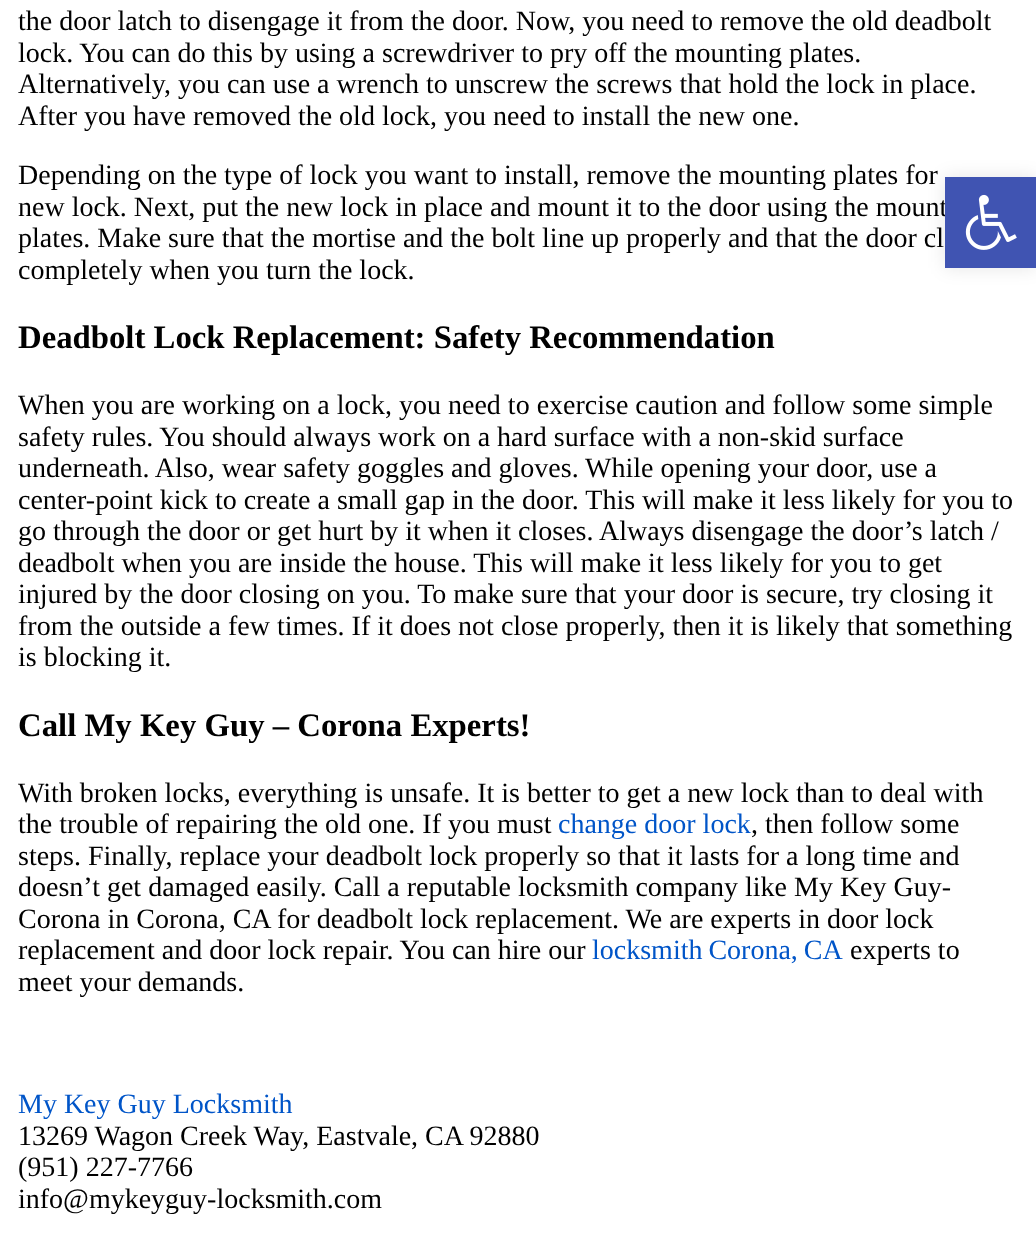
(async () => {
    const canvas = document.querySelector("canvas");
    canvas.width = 1036;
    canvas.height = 1252;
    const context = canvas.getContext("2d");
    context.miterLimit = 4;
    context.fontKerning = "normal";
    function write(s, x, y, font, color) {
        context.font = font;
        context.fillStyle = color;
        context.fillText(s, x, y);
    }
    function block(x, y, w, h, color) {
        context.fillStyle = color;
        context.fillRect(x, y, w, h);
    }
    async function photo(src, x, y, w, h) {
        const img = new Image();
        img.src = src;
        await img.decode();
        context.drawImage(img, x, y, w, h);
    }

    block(0, 0, 1036, 1252, "rgb(255, 255, 255)");
    write("the door latch to disengage it from the door. Now, you need to remove the old deadbolt", 18, 30, "28px Liberation Serif", "rgb(0, 0, 0)");
    write("lock. You can do this by using a screwdriver to pry off the mounting plates.", 18, 62, "28px Liberation Serif", "rgb(0, 0, 0)");
    write("Alternatively, you can use a wrench to unscrew the screws that hold the lock in place.", 18, 93, "28px Liberation Serif", "rgb(0, 0, 0)");
    write("After you have removed the old lock, you need to install the new one.", 18, 125, "28px Liberation Serif", "rgb(0, 0, 0)");
    write("Depending on the type of lock you want to install, remove the mounting plates for", 18, 184, "28px Liberation Serif", "rgb(0, 0, 0)");
    write("new lock. Next, put the new lock in place and mount it to the door using the mount", 18, 216, "28px Liberation Serif", "rgb(0, 0, 0)");
    write("plates. Make sure that the mortise and the bolt line up properly and that the door cl", 18, 247, "28px Liberation Serif", "rgb(0, 0, 0)");
    write("completely when you turn the lock.", 18, 279, "28px Liberation Serif", "rgb(0, 0, 0)");
    write("Deadbolt Lock Replacement: Safety Recommendation", 18, 348, "bold 32.75px Liberation Serif", "rgb(0, 0, 0)");
    write("When you are working on a lock, you need to exercise caution and follow some simple", 18, 414, "28px Liberation Serif", "rgb(0, 0, 0)");
    write("safety rules. You should always work on a hard surface with a non-skid surface", 18, 446, "28px Liberation Serif", "rgb(0, 0, 0)");
    write("underneath. Also, wear safety goggles and gloves. While opening your door, use a", 18, 477, "28px Liberation Serif", "rgb(0, 0, 0)");
    write("center-point kick to create a small gap in the door. This will make it less likely for you to", 18, 509, "28px Liberation Serif", "rgb(0, 0, 0)");
    write("go through the door or get hurt by it when it closes. Always disengage the door’s latch /", 18, 540, "28px Liberation Serif", "rgb(0, 0, 0)");
    write("deadbolt when you are inside the house. This will make it less likely for you to get", 18, 572, "28px Liberation Serif", "rgb(0, 0, 0)");
    write("injured by the door closing on you. To make sure that your door is secure, try closing it", 18, 603, "28px Liberation Serif", "rgb(0, 0, 0)");
    write("from the outside a few times. If it does not close properly, then it is likely that something", 18, 635, "28px Liberation Serif", "rgb(0, 0, 0)");
    write("is blocking it.", 18, 666, "28px Liberation Serif", "rgb(0, 0, 0)");
    write("Call My Key Guy – Corona Experts!", 18, 736, "bold 32.75px Liberation Serif", "rgb(0, 0, 0)");
    write("With broken locks, everything is unsafe. It is better to get a new lock than to deal with", 18, 802, "28px Liberation Serif", "rgb(0, 0, 0)");
    write("the trouble of repairing the old one. If you must", 18, 833, "28px Liberation Serif", "rgb(0, 0, 0)");
    write("change door lock", 558, 833, "28px Liberation Serif", "rgb(0, 85, 200)");
    write(", then follow some", 751, 833, "28px Liberation Serif", "rgb(0, 0, 0)");
    write("steps. Finally, replace your deadbolt lock properly so that it lasts for a long time and", 18, 865, "28px Liberation Serif", "rgb(0, 0, 0)");
    write("doesn’t get damaged easily. Call a reputable locksmith company like My Key Guy-", 18, 896, "28px Liberation Serif", "rgb(0, 0, 0)");
    write("Corona in Corona, CA for deadbolt lock replacement. We are experts in door lock", 18, 928, "28px Liberation Serif", "rgb(0, 0, 0)");
    write("replacement and door lock repair. You can hire our", 18, 959, "28px Liberation Serif", "rgb(0, 0, 0)");
    context.wordSpacing = "-1px";
    write("locksmith Corona, CA", 592, 959, "28px Liberation Serif", "rgb(0, 85, 200)");
    context.wordSpacing = "0px";
    write("experts to", 850, 959, "28px Liberation Serif", "rgb(0, 0, 0)");
    write("meet your demands.", 18, 991, "28px Liberation Serif", "rgb(0, 0, 0)");
    context.fillStyle = "rgba(0, 0, 0, 0.1)";
    context.filter = "blur(9px)";
    context.beginPath();
    context.rect(945, 177, 91, 91);
    context.fill();
    context.filter = "none";
    block(945, 177, 91, 91, "rgb(64, 84, 178)");
    await photo("media/1.png", 965, 194, 52, 56);
    write("My Key Guy Locksmith", 18, 1113, "28px Liberation Serif", "rgb(0, 85, 200)");
    write("13269 Wagon Creek Way, Eastvale, CA 92880", 18, 1145, "28px Liberation Serif", "rgb(0, 0, 0)");
    write("(951) 227-7766", 18, 1176, "28px Liberation Serif", "rgb(0, 0, 0)");
    write("info@mykeyguy-locksmith.com", 18, 1208, "28px Liberation Serif", "rgb(0, 0, 0)");
})();
